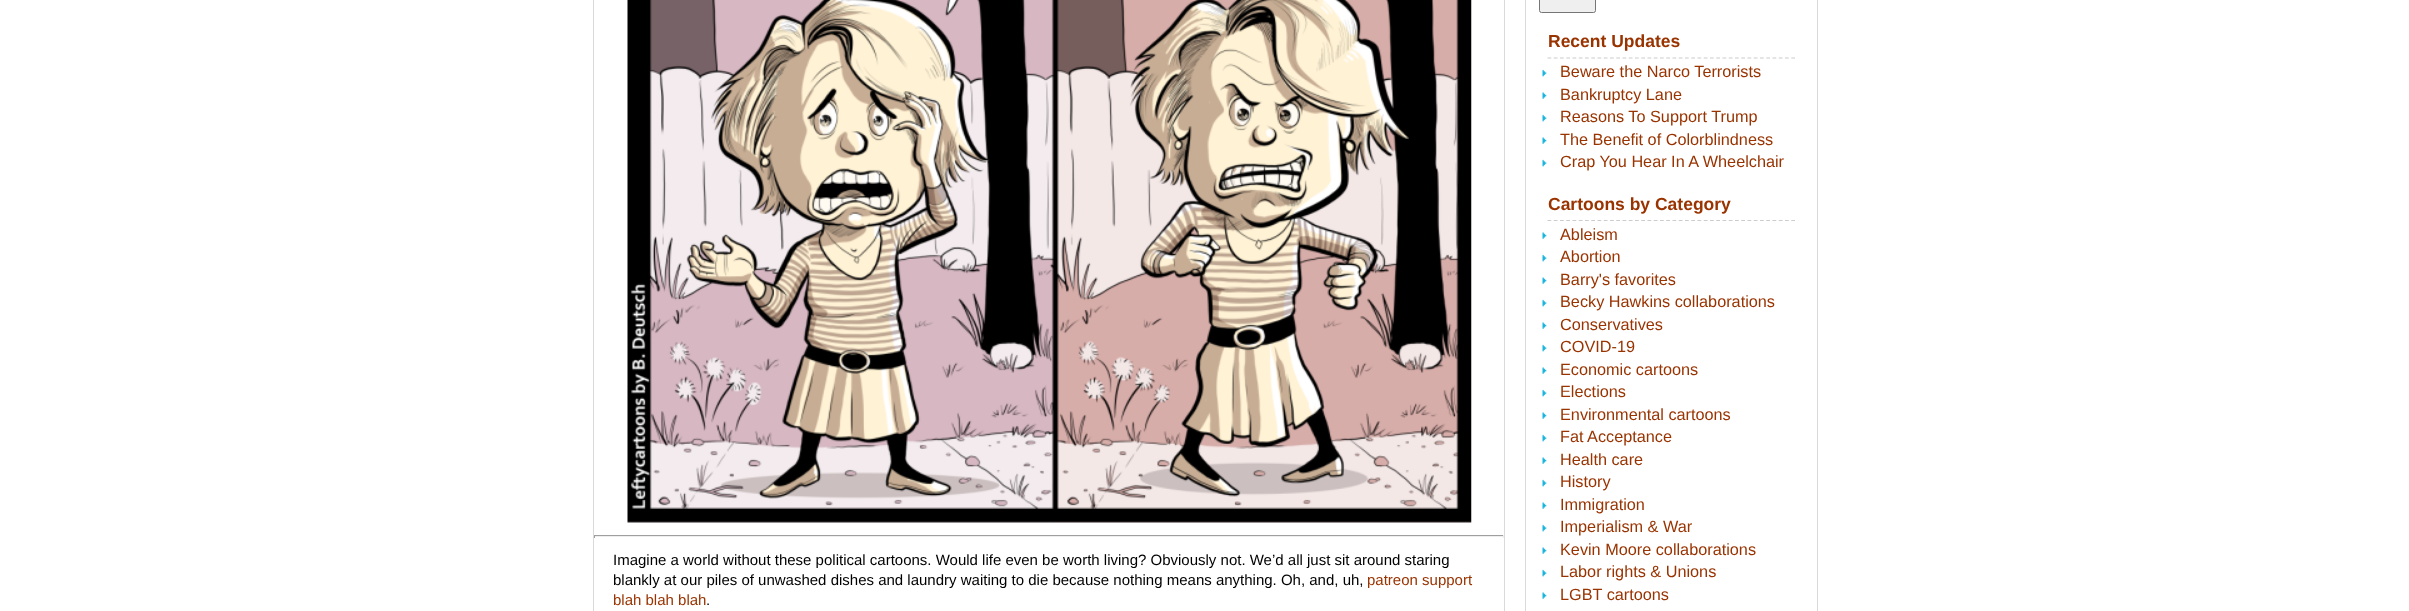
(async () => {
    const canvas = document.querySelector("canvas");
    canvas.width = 2409;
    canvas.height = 611;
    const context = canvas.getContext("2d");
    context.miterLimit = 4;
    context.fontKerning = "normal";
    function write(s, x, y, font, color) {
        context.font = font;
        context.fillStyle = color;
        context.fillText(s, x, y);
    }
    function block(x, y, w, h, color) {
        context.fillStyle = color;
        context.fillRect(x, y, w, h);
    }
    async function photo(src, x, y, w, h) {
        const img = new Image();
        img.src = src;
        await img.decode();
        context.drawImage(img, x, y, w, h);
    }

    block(0, 0, 2409, 611, "rgb(255, 255, 255)");
    context.strokeStyle = "rgb(218, 218, 218)";
    context.strokeRect(593.5, -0.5, 911, 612);
    await photo("media/1.png", 627, 0, 845, 523);
    block(594, 535, 910, 1, "rgb(159, 159, 159)");
    block(1503, 535, 1, 3, "rgb(238, 238, 238)");
    block(594, 536, 910, 1, "rgb(238, 238, 238)");
    block(594, 535, 1, 3, "rgb(159, 159, 159)");
    write("Imagine a world without these political cartoons. Would life even be worth living? Obviously not. We’d all just sit around staring", 613, 565, "15px Liberation Sans", "rgb(0, 0, 0)");
    write("blankly at our piles of unwashed dishes and laundry waiting to die because nothing means anything. Oh, and, uh,", 613, 585, "15px Liberation Sans", "rgb(0, 0, 0)");
    write("patreon support", 1367, 585, "15px Liberation Sans", "rgb(153, 51, 0)");
    write("blah blah blah", 613, 605, "15px Liberation Sans", "rgb(153, 51, 0)");
    write(".", 706, 605, "15px Liberation Sans", "rgb(0, 0, 0)");
    context.strokeRect(1525.5, -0.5, 292, 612);
    context.fillStyle = "rgb(239, 239, 239)";
    context.beginPath();
    context.roundRect(1539.5, -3.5, 56, 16, 2);
    context.fill();
    context.strokeStyle = "rgb(118, 118, 118)";
    context.stroke();
    context.beginPath();
    context.moveTo(1547.5, 58);
    context.lineTo(1795, 58);
    context.strokeStyle = "rgb(204, 204, 204)";
    context.lineWidth = 1.2;
    context.setLineDash([3.75, 2.5]);
    context.stroke();
    write("Recent Updates", 1548, 47, "bold 17.5px Liberation Sans", "rgb(153, 51, 0)");
    await photo("media/2.png", 1542, 69, 5, 8);
    write("Beware the Narco Terrorists", 1560, 77, "16.25px Liberation Sans", "rgb(153, 51, 0)");
    await photo("media/3.png", 1542, 92, 5, 7);
    write("Bankruptcy Lane", 1560, 100, "16.25px Liberation Sans", "rgb(153, 51, 0)");
    await photo("media/2.png", 1542, 114, 5, 8);
    write("Reasons To Support Trump", 1560, 122, "16.25px Liberation Sans", "rgb(153, 51, 0)");
    await photo("media/3.png", 1542, 137, 5, 7);
    write("The Benefit of Colorblindness", 1560, 145, "16.25px Liberation Sans", "rgb(153, 51, 0)");
    await photo("media/2.png", 1542, 159, 5, 8);
    write("Crap You Hear In A Wheelchair", 1560, 167, "16.25px Liberation Sans", "rgb(153, 51, 0)");
    context.beginPath();
    context.moveTo(1547.5, 220.5);
    context.lineTo(1795, 220.5);
    context.stroke();
    write("Cartoons by Category", 1548, 210, "bold 17.5px Liberation Sans", "rgb(153, 51, 0)");
    await photo("media/3.png", 1542, 232, 5, 7);
    write("Ableism", 1560, 240, "16.25px Liberation Sans", "rgb(153, 51, 0)");
    await photo("media/2.png", 1542, 254, 5, 8);
    write("Abortion", 1560, 262, "16.25px Liberation Sans", "rgb(153, 51, 0)");
    await photo("media/4.png", 1542, 277, 5, 7);
    write("Barry's favorites", 1560, 285, "16.25px Liberation Sans", "rgb(153, 51, 0)");
    await photo("media/2.png", 1542, 299, 5, 8);
    write("Becky Hawkins collaborations", 1560, 307, "16.25px Liberation Sans", "rgb(153, 51, 0)");
    await photo("media/3.png", 1542, 322, 5, 7);
    write("Conservatives", 1560, 330, "16.25px Liberation Sans", "rgb(153, 51, 0)");
    await photo("media/2.png", 1542, 344, 5, 8);
    write("COVID-19", 1560, 352, "16.25px Liberation Sans", "rgb(153, 51, 0)");
    await photo("media/3.png", 1542, 367, 5, 7);
    write("Economic cartoons", 1560, 375, "16.25px Liberation Sans", "rgb(153, 51, 0)");
    await photo("media/2.png", 1542, 389, 5, 8);
    write("Elections", 1560, 397, "16.25px Liberation Sans", "rgb(153, 51, 0)");
    await photo("media/3.png", 1542, 412, 5, 7);
    write("Environmental cartoons", 1560, 420, "16.25px Liberation Sans", "rgb(153, 51, 0)");
    await photo("media/2.png", 1542, 434, 5, 8);
    write("Fat Acceptance", 1560, 442, "16.25px Liberation Sans", "rgb(153, 51, 0)");
    await photo("media/3.png", 1542, 457, 5, 7);
    write("Health care", 1560, 465, "16.25px Liberation Sans", "rgb(153, 51, 0)");
    await photo("media/2.png", 1542, 479, 5, 8);
    write("History", 1560, 487, "16.25px Liberation Sans", "rgb(153, 51, 0)");
    await photo("media/3.png", 1542, 502, 5, 7);
    write("Immigration", 1560, 510, "16.25px Liberation Sans", "rgb(153, 51, 0)");
    await photo("media/2.png", 1542, 524, 5, 8);
    write("Imperialism & War", 1560, 532, "16.25px Liberation Sans", "rgb(153, 51, 0)");
    await photo("media/3.png", 1542, 547, 5, 7);
    write("Kevin Moore collaborations", 1560, 555, "16.25px Liberation Sans", "rgb(153, 51, 0)");
    await photo("media/2.png", 1542, 569, 5, 8);
    write("Labor rights & Unions", 1560, 577, "16.25px Liberation Sans", "rgb(153, 51, 0)");
    await photo("media/3.png", 1542, 592, 5, 7);
    write("LGBT cartoons", 1560, 600, "16.25px Liberation Sans", "rgb(153, 51, 0)");
})();
